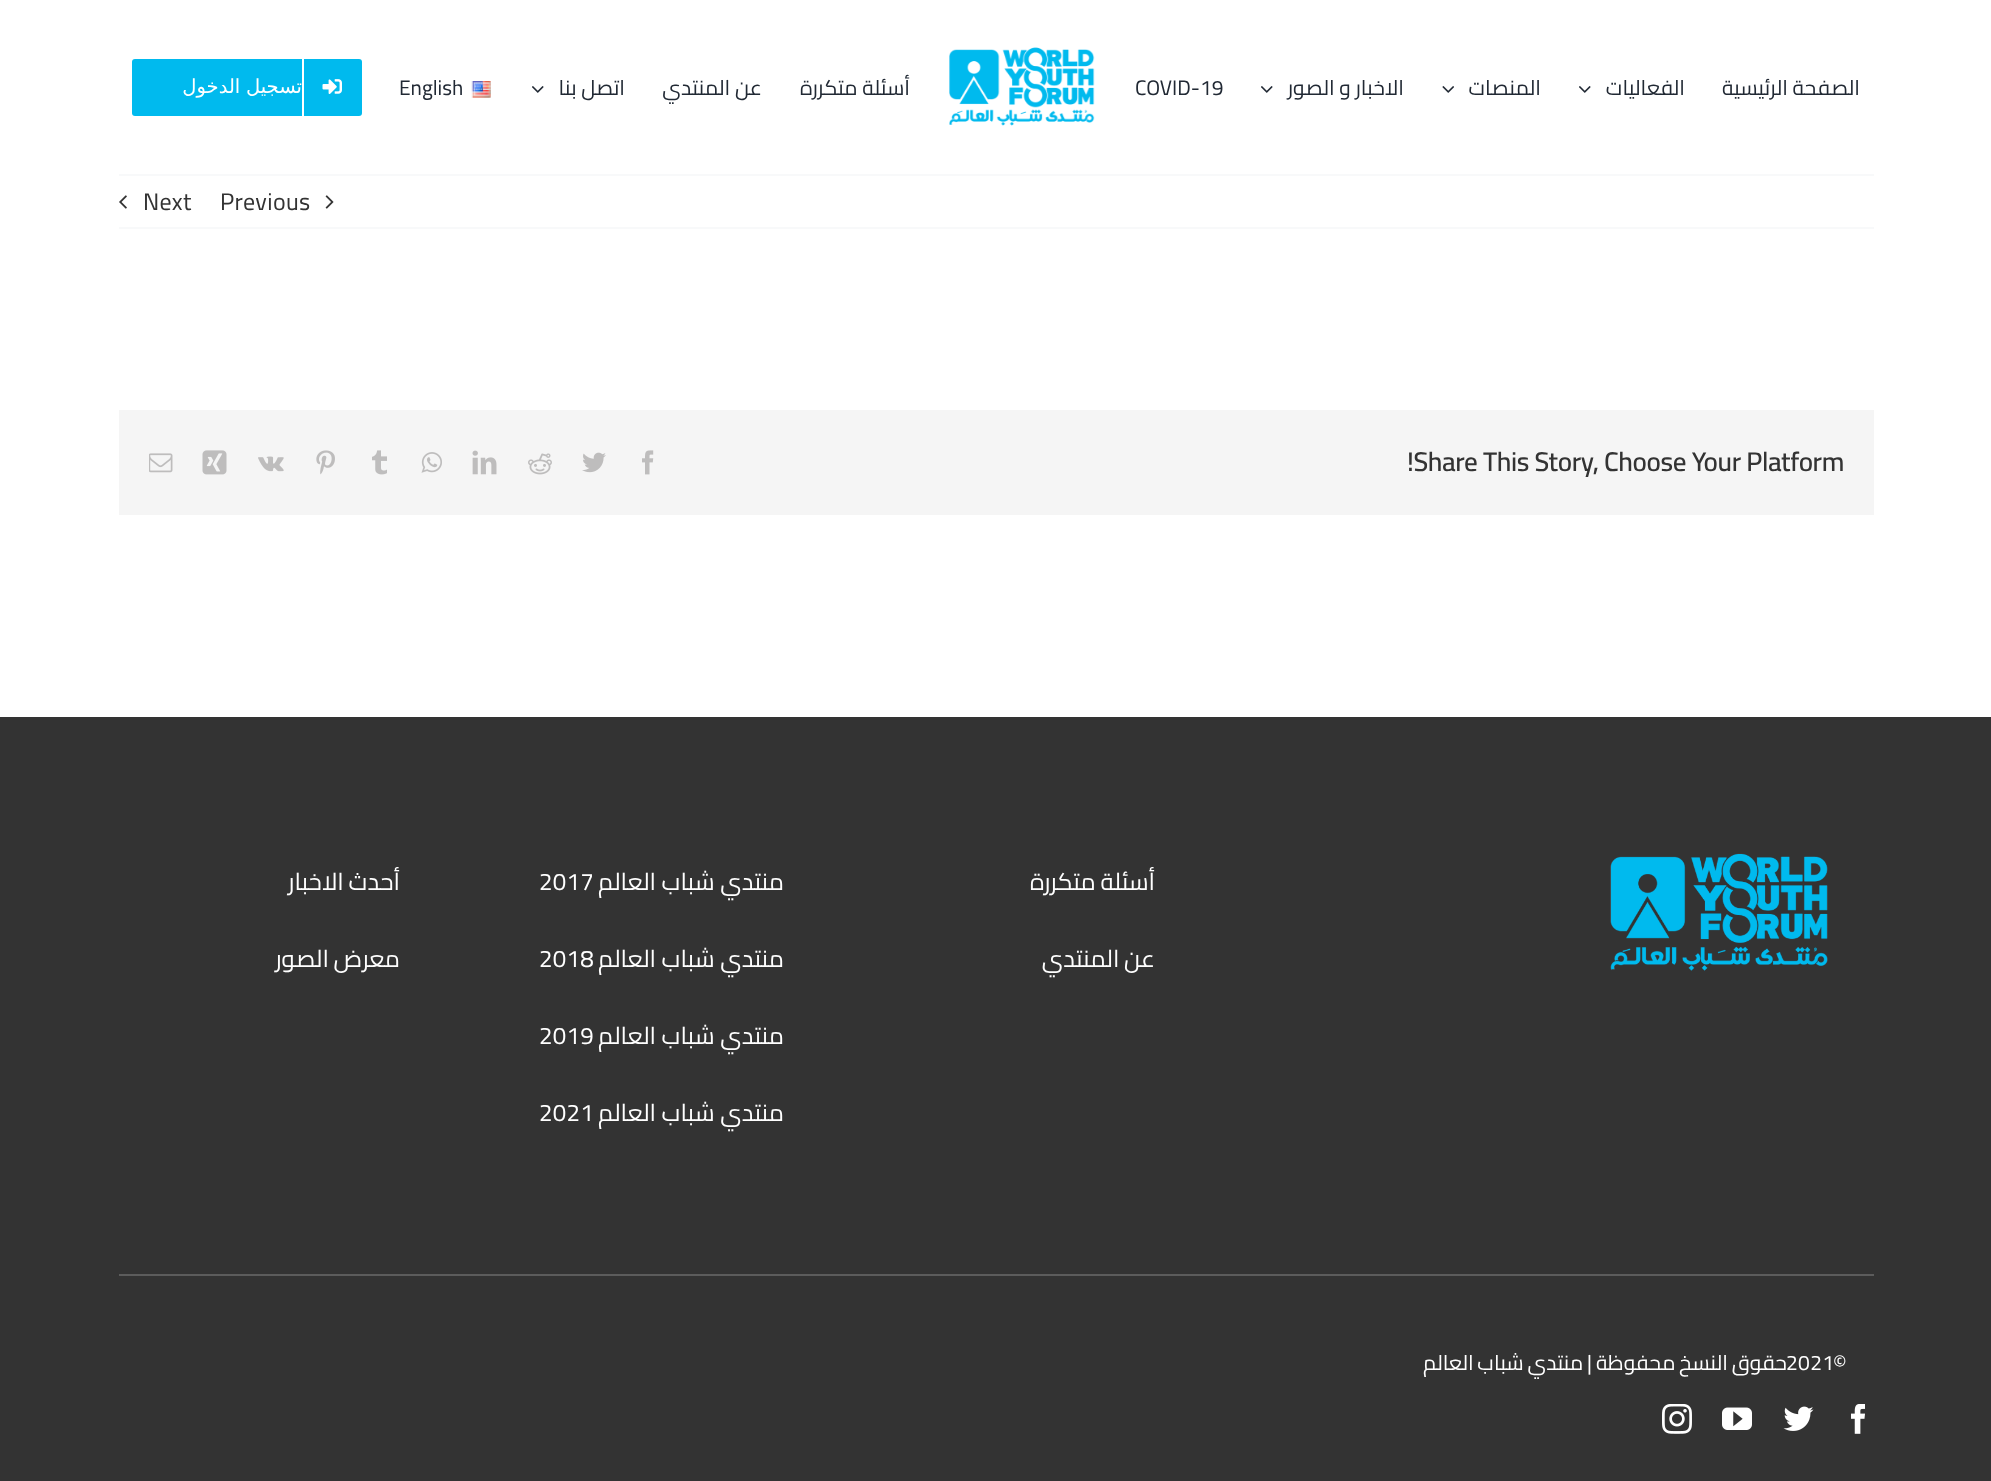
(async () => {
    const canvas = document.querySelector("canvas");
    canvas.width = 1991;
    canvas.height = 1481;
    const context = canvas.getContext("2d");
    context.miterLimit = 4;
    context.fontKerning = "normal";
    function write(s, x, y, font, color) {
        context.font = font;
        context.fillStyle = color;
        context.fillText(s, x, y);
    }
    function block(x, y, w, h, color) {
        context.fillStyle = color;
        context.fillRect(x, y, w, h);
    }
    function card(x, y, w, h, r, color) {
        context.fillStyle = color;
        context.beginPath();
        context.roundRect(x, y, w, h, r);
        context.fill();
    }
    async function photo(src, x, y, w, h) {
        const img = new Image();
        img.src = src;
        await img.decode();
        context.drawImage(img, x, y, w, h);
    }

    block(0, 0, 1991, 1481, "rgb(255, 255, 255)");
    context.direction = "rtl";
    write("الصفحة الرئيسية", 1860, 95, "21px Cairo", "rgb(33, 41, 52)");
    write("الفعاليات", 1685, 95, "21px Cairo", "rgb(33, 41, 52)");
    await photo("media/1.png", 1579, 86, 12, 7);
    write("المنصات", 1541, 95, "21px Cairo", "rgb(33, 41, 52)");
    await photo("media/2.png", 1442, 86, 12, 7);
    write("الاخبار و الصور", 1404, 95, "21px Cairo", "rgb(33, 41, 52)");
    await photo("media/1.png", 1261, 86, 12, 7);
    context.direction = "ltr";
    write("COVID-19", 1135, 95, "21px Cairo", "rgb(33, 41, 52)");
    await photo("media/3.png", 949, 47, 146, 79);
    context.direction = "rtl";
    write("أسئلة متكررة", 910, 95, "21px Cairo", "rgb(33, 41, 52)");
    write("عن المنتدي", 762, 95, "21px Cairo", "rgb(33, 41, 52)");
    write("اتصل بنا", 625, 95, "21px Cairo", "rgb(33, 41, 52)");
    await photo("media/1.png", 532, 86, 12, 7);
    await photo("media/4.png", 471, 81, 20, 17);
    context.direction = "ltr";
    write("English", 399, 95, "21px Cairo", "rgb(33, 41, 52)");
    card(132, 59, 230, 57, 3, "rgb(0, 186, 238)");
    block(302, 59, 2, 57, "rgb(255, 255, 255)");
    await photo("media/5.png", 322, 79, 20, 15);
    context.letterSpacing = "1.5px";
    context.wordSpacing = "-2px";
    context.direction = "rtl";
    write("تسجيل الدخول", 302, 93, "19.5px DejaVu Sans", "rgb(255, 255, 255)");
    block(119, 174, 1755, 2, "rgb(248, 249, 250)");
    block(119, 227, 1755, 2, "rgb(248, 249, 250)");
    await photo("media/6.png", 325, 195, 9, 14);
    context.letterSpacing = "0.35px";
    context.wordSpacing = "0px";
    context.direction = "ltr";
    write("Previous", 220, 210, "24px Cairo", "rgb(51, 51, 51)");
    write("Next", 143, 210, "24px Cairo", "rgb(51, 51, 51)");
    await photo("media/7.png", 119, 195, 8, 14);
    block(119, 410, 1755, 105, "rgb(245, 245, 245)");
    context.letterSpacing = "-0.4px";
    write("!Share This Story, Choose Your Platform", 1407, 471, "600 27px Cairo", "rgb(51, 51, 51)");
    await photo("media/8.png", 642, 450, 12, 25);
    await photo("media/9.png", 582, 452, 24, 21);
    await photo("media/10.png", 528, 453, 24, 22);
    await photo("media/11.png", 472, 450, 25, 25);
    await photo("media/12.png", 421, 452, 21, 21);
    await photo("media/13.png", 372, 450, 15, 25);
    await photo("media/14.png", 316, 450, 19, 25);
    await photo("media/15.png", 258, 456, 26, 16);
    await photo("media/16.png", 202, 450, 25, 25);
    await photo("media/17.png", 149, 453, 24, 20);
    block(0, 717, 1991, 764, "rgb(51, 51, 51)");
    await photo("media/18.png", 1610, 853, 218, 118);
    context.letterSpacing = "0.35px";
    context.wordSpacing = "-1px";
    context.direction = "rtl";
    write("أسئلة متكررة", 1155, 890, "24px Cairo", "rgb(255, 255, 255)");
    write("عن المنتدي", 1155, 967, "24px Cairo", "rgb(255, 255, 255)");
    context.wordSpacing = "0px";
    write("منتدي شباب العالم", 784, 890, "24px Cairo", "rgb(255, 255, 255)");
    context.direction = "ltr";
    write("2017", 539, 890, "24px Cairo", "rgb(255, 255, 255)");
    context.direction = "rtl";
    write("منتدي شباب العالم", 784, 967, "24px Cairo", "rgb(255, 255, 255)");
    context.direction = "ltr";
    write("2018", 539, 967, "24px Cairo", "rgb(255, 255, 255)");
    context.direction = "rtl";
    write("منتدي شباب العالم", 784, 1044, "24px Cairo", "rgb(255, 255, 255)");
    context.direction = "ltr";
    write("2019", 539, 1044, "24px Cairo", "rgb(255, 255, 255)");
    context.direction = "rtl";
    write("منتدي شباب العالم", 784, 1121, "24px Cairo", "rgb(255, 255, 255)");
    context.direction = "ltr";
    write("2021", 539, 1121, "24px Cairo", "rgb(255, 255, 255)");
    context.wordSpacing = "-1px";
    context.direction = "rtl";
    write("أحدث الاخبار", 400, 890, "24px Cairo", "rgb(255, 255, 255)");
    write("معرض الصور", 400, 967, "24px Cairo", "rgb(255, 255, 255)");
    block(119, 1274, 1755, 2, "rgb(92, 92, 92)");
    context.wordSpacing = "0px";
    context.direction = "ltr";
    write("©", 1833, 1370, "21px Cairo", "rgb(255, 255, 255)");
    context.wordSpacing = "-1.25px";
    context.direction = "rtl";
    write("حقوق النسخ محفوظة | منتدي شباب العالم", 1787, 1370, "21px Cairo", "rgb(255, 255, 255)");
    context.wordSpacing = "0px";
    context.direction = "ltr";
    write("2021", 1786, 1370, "21px Cairo", "rgb(255, 255, 255)");
    await photo("media/19.png", 1851, 1404, 14, 30);
    await photo("media/20.png", 1783, 1406, 31, 25);
    await photo("media/21.png", 1722, 1407, 30, 23);
    await photo("media/22.png", 1662, 1404, 30, 30);
})();
